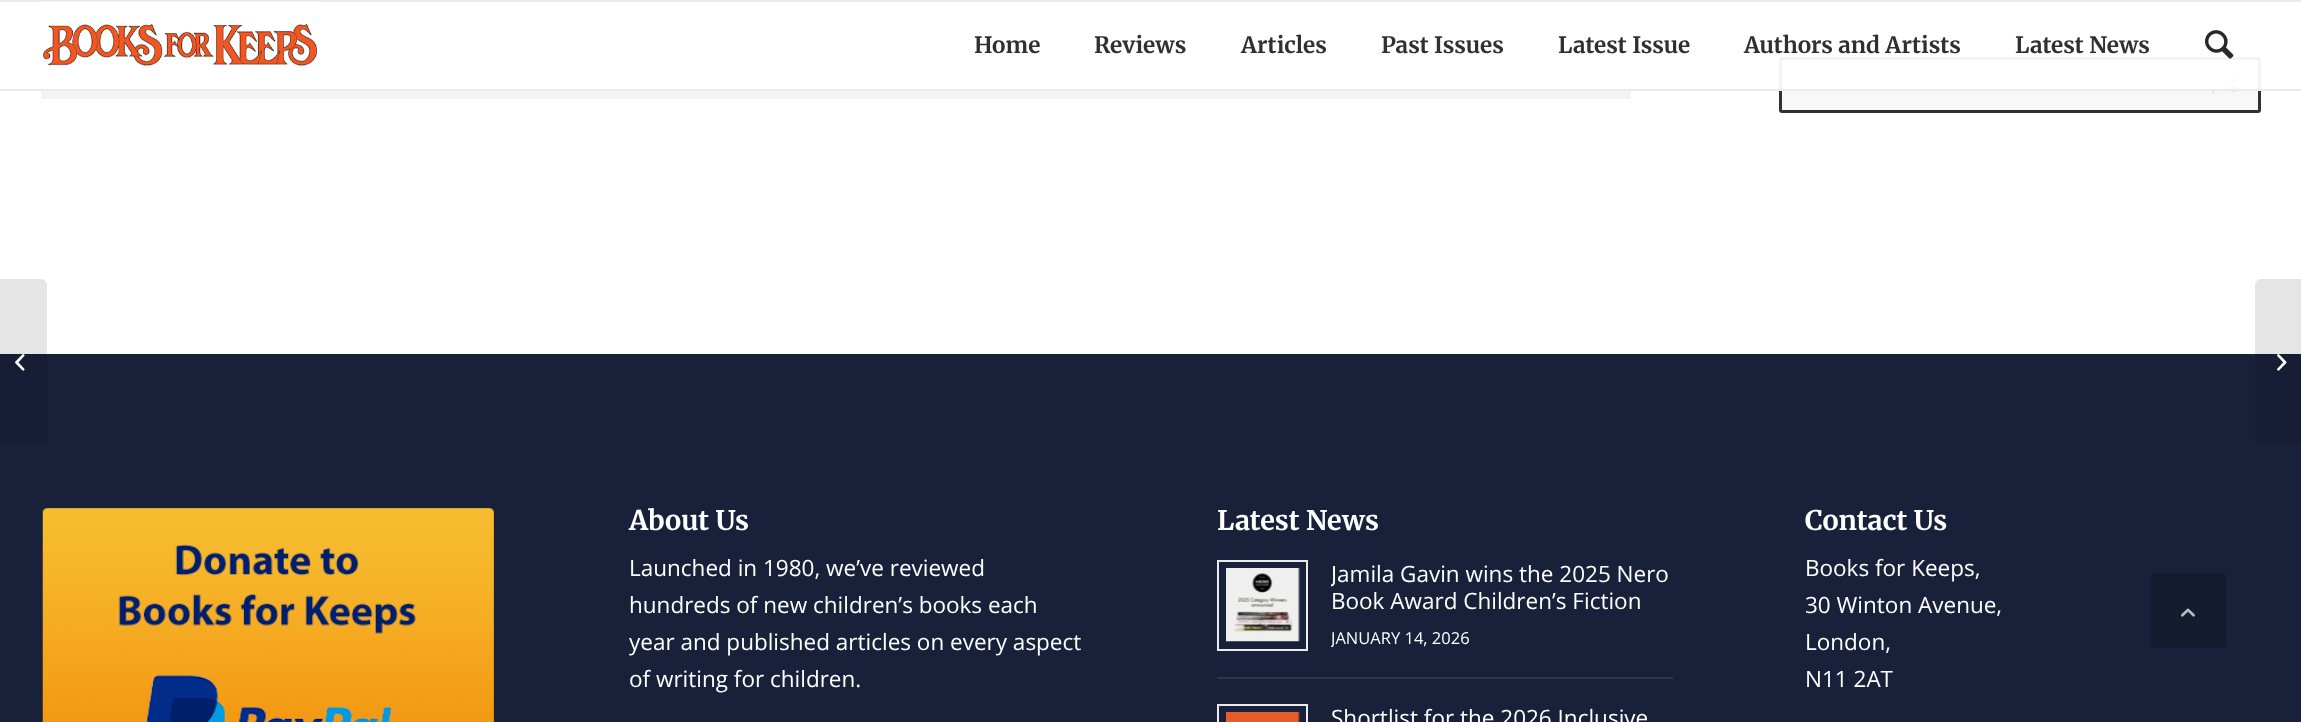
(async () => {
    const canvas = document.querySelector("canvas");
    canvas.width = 2301;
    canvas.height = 722;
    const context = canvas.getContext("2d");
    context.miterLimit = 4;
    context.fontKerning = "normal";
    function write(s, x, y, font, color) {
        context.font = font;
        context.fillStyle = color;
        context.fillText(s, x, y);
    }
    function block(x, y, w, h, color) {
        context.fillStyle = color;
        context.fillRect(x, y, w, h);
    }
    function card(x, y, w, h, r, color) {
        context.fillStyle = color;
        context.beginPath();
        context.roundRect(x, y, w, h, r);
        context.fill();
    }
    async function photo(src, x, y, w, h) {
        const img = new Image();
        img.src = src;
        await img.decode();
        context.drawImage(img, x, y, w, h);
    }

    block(0, 0, 2301, 722, "rgb(255, 255, 255)");
    block(41, 2, 1590, 97, "rgb(244, 244, 244)");
    card(1779, 57, 482, 56, 3, "rgb(248, 248, 248)");
    await photo("media/5.png", 2212, 74, 27, 20);
    context.beginPath();
    context.roundRect(1780.5, 58.5, 479, 53, 1.5);
    context.strokeStyle = "rgb(49, 49, 49)";
    context.lineWidth = 3;
    context.stroke();
    block(41, 2, 2220, 87, "rgba(255, 255, 255, 0.95)");
    block(0, 0, 2301, 2, "rgb(235, 235, 235)");
    block(0, 89, 2301, 2, "rgb(235, 235, 235)");
    await photo("media/1.png", 40, 1, 280, 65);
    write("Home", 974, 53, "bold 22.5px Merriweather", "rgb(48, 48, 48)");
    write("Reviews", 1094, 53, "bold 22.5px Merriweather", "rgb(48, 48, 48)");
    write("Articles", 1241, 53, "bold 22.5px Merriweather", "rgb(48, 48, 48)");
    write("Past Issues", 1381, 53, "bold 22.5px Merriweather", "rgb(48, 48, 48)");
    write("Latest Issue", 1558, 53, "bold 22.5px Merriweather", "rgb(48, 48, 48)");
    write("Authors and Artists", 1744, 53, "bold 22.5px Merriweather", "rgb(48, 48, 48)");
    write("Latest News", 2015, 53, "bold 22.5px Merriweather", "rgb(48, 48, 48)");
    await photo("media/2.png", 2205, 30, 29, 29);
    block(0, 354, 2301, 368, "rgb(25, 33, 58)");
    context.fillStyle = "rgba(0, 0, 0, 0.1)";
    context.beginPath();
    context.roundRect(0, 279, 47, 165, [0, 6, 6, 0]);
    context.fill();
    await photo("media/3.png", 15, 354, 10, 17);
    context.beginPath();
    context.roundRect(2255, 279, 46, 165, [6, 0, 0, 6]);
    context.fill();
    await photo("media/4.png", 2277, 354, 10, 17);
    await photo("media/6.png", 42, 508, 452, 214);
    write("About Us", 629, 530, "bold 27px Merriweather", "rgb(255, 255, 255)");
    write("Launched in 1980, we’ve reviewed", 629, 576, "22.5px Open Sans", "rgb(255, 255, 255)");
    write("hundreds of new children’s books each", 629, 613, "22.5px Open Sans", "rgb(255, 255, 255)");
    write("year and published articles on every aspect", 629, 650, "22.5px Open Sans", "rgb(255, 255, 255)");
    write("of writing for children.", 629, 687, "22.5px Open Sans", "rgb(255, 255, 255)");
    write("Latest News", 1217, 530, "bold 27px Merriweather", "rgb(255, 255, 255)");
    block(1217, 677, 456, 2, "rgb(47, 54, 76)");
    context.strokeStyle = "rgb(235, 235, 235)";
    context.lineWidth = 2;
    context.strokeRect(1218, 561, 89, 89);
    await photo("media/7.png", 1226, 568, 74, 74);
    context.save();
    context.beginPath();
    context.rect(1331, 560, 342, 93);
    context.clip();
    write("Jamila Gavin wins the 2025 Nero", 1331, 582, "22.5px Open Sans", "rgb(255, 255, 255)");
    context.restore();
    write("Book Award Children’s Fiction", 1331, 609, "22.5px Open Sans", "rgb(255, 255, 255)");
    context.save();
    context.beginPath();
    context.rect(1331, 560, 342, 93);
    context.clip();
    write("JANUARY 14, 2026", 1331, 644, "16.5px Open Sans", "rgb(255, 255, 255)");
    context.restore();
    context.strokeRect(1218, 705, 89, 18);
    await photo("media/8.png", 1226, 712, 74, 10);
    write("Shortlist for the 2026 Inclusive", 1331, 726, "22.5px Open Sans", "rgb(255, 255, 255)");
    write("Contact Us", 1805, 530, "bold 27px Merriweather", "rgb(255, 255, 255)");
    write("Books for Keeps,", 1805, 576, "22.5px Open Sans", "rgb(255, 255, 255)");
    write("30 Winton Avenue,", 1805, 613, "22.5px Open Sans", "rgb(255, 255, 255)");
    write("London,", 1805, 650, "22.5px Open Sans", "rgb(255, 255, 255)");
    write("N11 2AT", 1805, 687, "22.5px Open Sans", "rgb(255, 255, 255)");
    context.fillStyle = "rgb(19, 27, 46)";
    context.beginPath();
    context.roundRect(2152, 574, 73, 73, 2);
    context.fill();
    context.strokeStyle = "rgb(19, 27, 46)";
    context.stroke();
    await photo("media/9.png", 2181, 608, 14, 9);
})();
